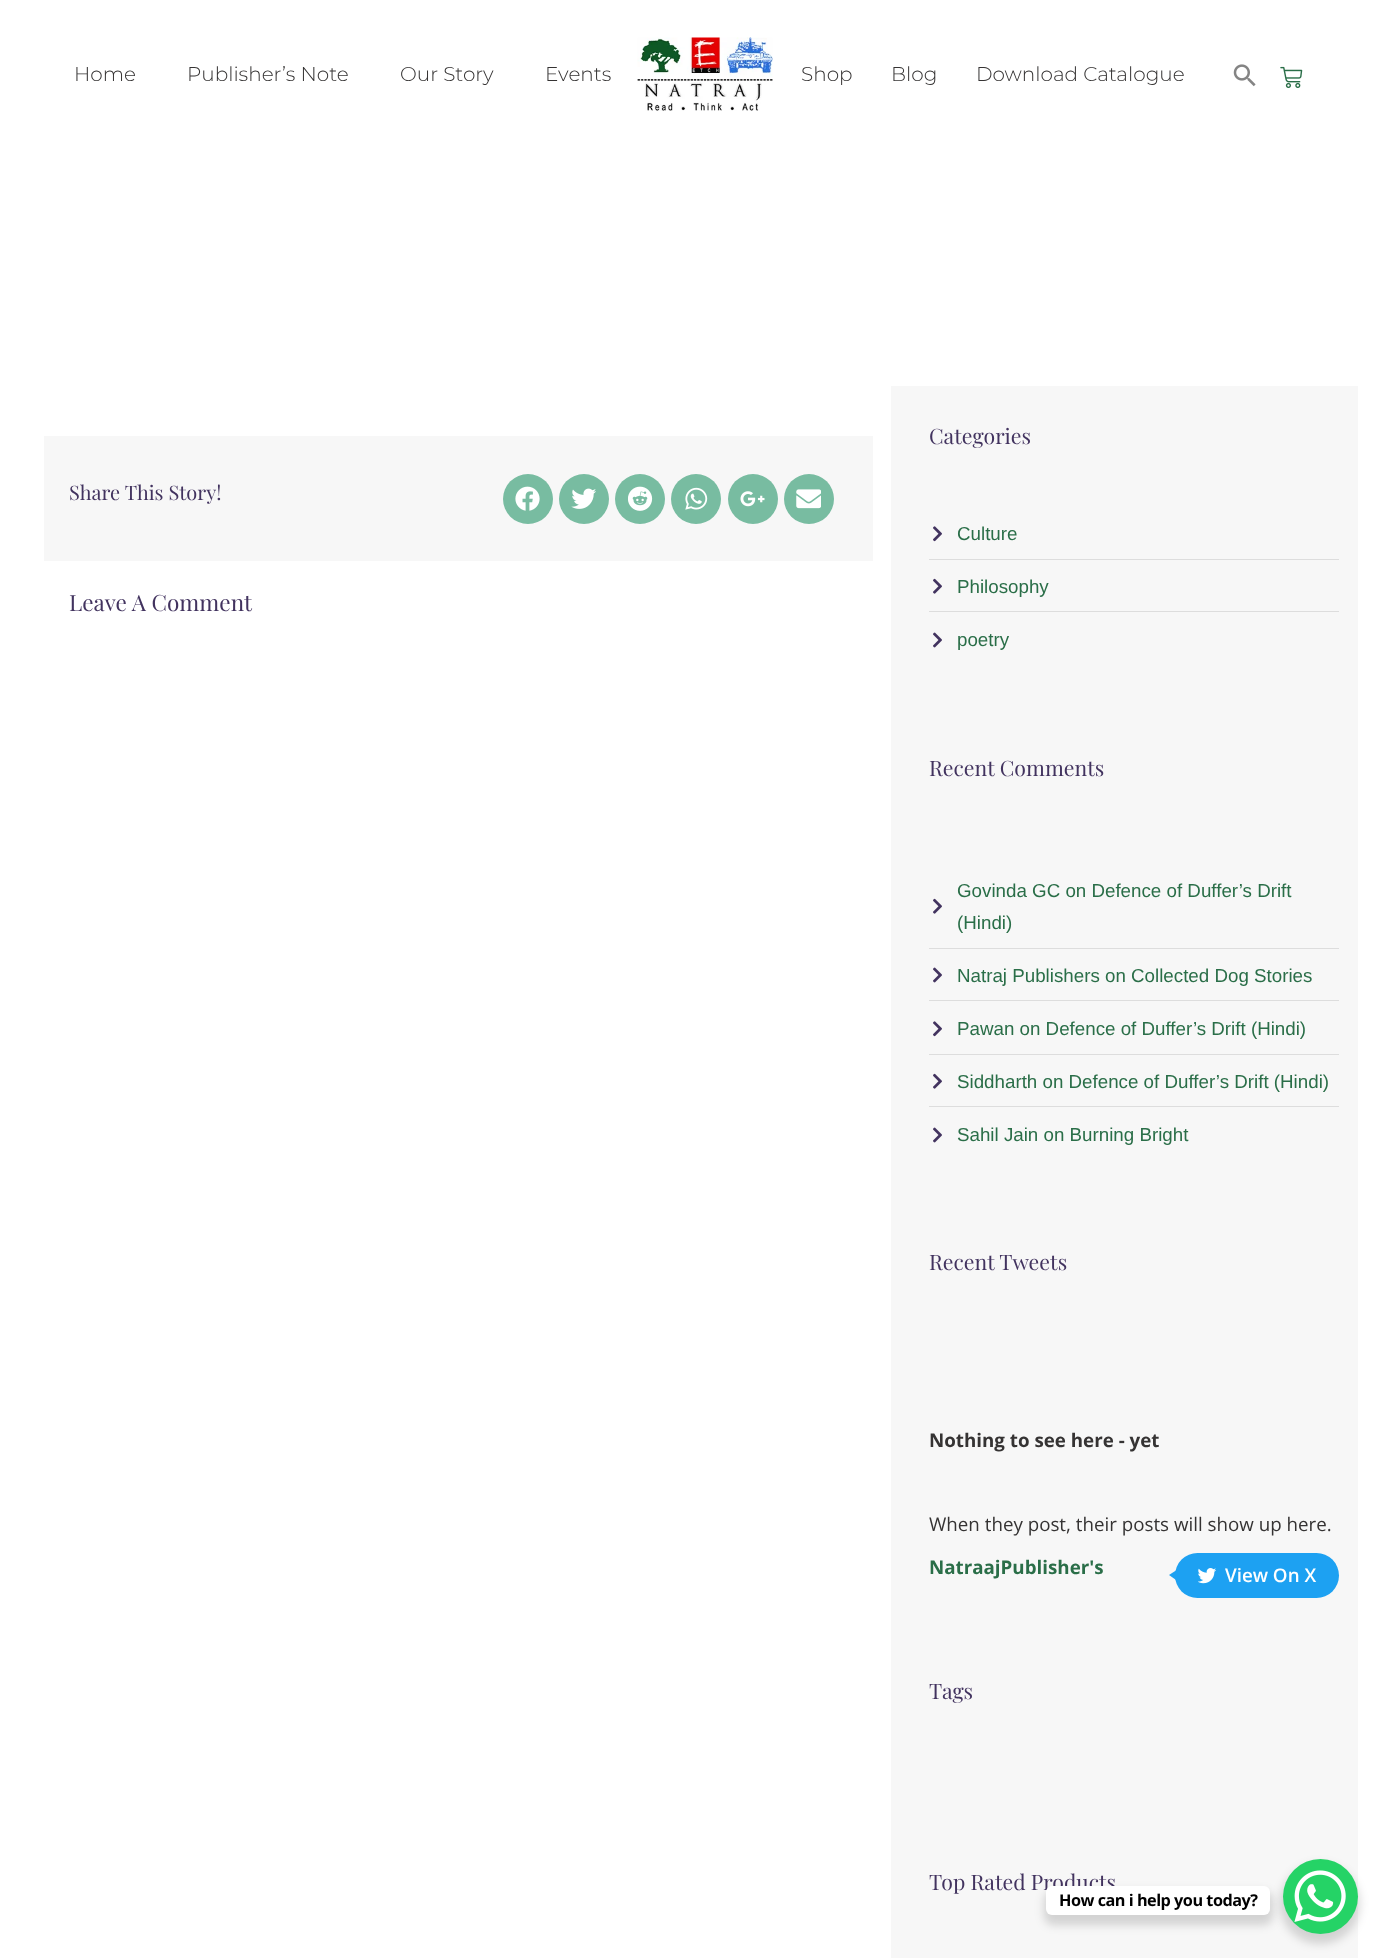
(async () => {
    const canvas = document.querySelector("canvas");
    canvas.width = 1382;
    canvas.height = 1958;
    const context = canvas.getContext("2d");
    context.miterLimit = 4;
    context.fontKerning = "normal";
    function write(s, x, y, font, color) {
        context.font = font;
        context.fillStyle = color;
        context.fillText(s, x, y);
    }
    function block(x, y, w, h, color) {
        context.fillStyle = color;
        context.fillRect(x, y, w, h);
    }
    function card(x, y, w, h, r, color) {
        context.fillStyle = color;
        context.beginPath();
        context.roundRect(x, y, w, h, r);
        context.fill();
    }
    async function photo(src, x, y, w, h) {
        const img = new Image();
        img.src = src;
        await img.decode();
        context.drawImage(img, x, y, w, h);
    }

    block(0, 0, 1382, 1958, "rgb(255, 255, 255)");
    write("Home", 74, 81, "300 20px Montserrat", "rgb(53, 51, 51)");
    write("Publisher’s Note", 187, 81, "300 20px Montserrat", "rgb(53, 51, 51)");
    write("Our Story", 400, 81, "300 20px Montserrat", "rgb(53, 51, 51)");
    write("Events", 545, 81, "300 20px Montserrat", "rgb(53, 51, 51)");
    await photo("media/1.png", 637, 37, 136, 74);
    write("Shop", 801, 81, "300 20px Montserrat", "rgb(53, 51, 51)");
    write("Blog", 891, 81, "300 20px Montserrat", "rgb(53, 51, 51)");
    write("Download Catalogue", 976, 81, "300 20px Montserrat", "rgb(53, 51, 51)");
    await photo("media/2.png", 1233, 64, 23, 23);
    await photo("media/3.png", 1280, 66, 23, 22);
    block(44, 436, 829, 125, "rgb(247, 247, 247)");
    write("Share This Story!", 69, 500, "20px Playfair Display", "rgb(66, 51, 95)");
    context.fillStyle = "rgb(120, 188, 161)";
    context.beginPath();
    context.arc(528, 499, 25, 0, Math.PI * 2);
    context.fill();
    await photo("media/4.png", 515, 486, 25, 25);
    context.beginPath();
    context.arc(584, 499, 25, 0, Math.PI * 2);
    context.fill();
    await photo("media/5.png", 571, 488, 25, 21);
    context.beginPath();
    context.arc(640, 499, 25, 0, Math.PI * 2);
    context.fill();
    await photo("media/6.png", 628, 486, 25, 25);
    context.beginPath();
    context.arc(696, 499, 25, 0, Math.PI * 2);
    context.fill();
    await photo("media/7.png", 685, 487, 23, 23);
    context.beginPath();
    context.arc(753, 499, 25, 0, Math.PI * 2);
    context.fill();
    await photo("media/8.png", 740, 491, 25, 16);
    context.beginPath();
    context.arc(809, 499, 25, 0, Math.PI * 2);
    context.fill();
    await photo("media/9.png", 796, 489, 25, 20);
    write("Leave A Comment", 69, 611, "22.5px Playfair Display", "rgb(66, 51, 95)");
    block(891, 386, 467, 1572, "rgb(247, 247, 247)");
    write("Categories", 929, 444, "21.25px Playfair Display", "rgb(66, 51, 95)");
    await photo("media/10.png", 933, 526, 9, 16);
    write("Culture", 957, 540, "18.75px Liberation Sans", "rgb(42, 110, 72)");
    block(929, 559, 410, 1, "rgb(221, 221, 221)");
    await photo("media/11.png", 933, 578, 9, 16);
    write("Philosophy", 957, 593, "18.75px Liberation Sans", "rgb(42, 110, 72)");
    block(929, 611, 410, 1, "rgb(221, 221, 221)");
    await photo("media/12.png", 933, 632, 9, 16);
    write("poetry", 957, 646, "18.75px Liberation Sans", "rgb(42, 110, 72)");
    write("Recent Comments", 929, 776, "21.25px Playfair Display", "rgb(66, 51, 95)");
    await photo("media/11.png", 933, 898, 9, 16);
    write("Govinda GC on Defence of Duffer’s Drift", 957, 897, "18.75px Liberation Sans", "rgb(42, 110, 72)");
    write("(Hindi)", 957, 929, "18.75px Liberation Sans", "rgb(42, 110, 72)");
    block(929, 948, 410, 1, "rgb(221, 221, 221)");
    await photo("media/12.png", 933, 967, 9, 16);
    write("Natraj Publishers on Collected Dog Stories", 957, 982, "18.75px Liberation Sans", "rgb(42, 110, 72)");
    block(929, 1000, 410, 1, "rgb(221, 221, 221)");
    await photo("media/10.png", 933, 1021, 9, 16);
    write("Pawan on Defence of Duffer’s Drift (Hindi)", 957, 1035, "18.75px Liberation Sans", "rgb(42, 110, 72)");
    block(929, 1054, 410, 1, "rgb(221, 221, 221)");
    await photo("media/11.png", 933, 1073, 9, 16);
    write("Siddharth on Defence of Duffer’s Drift (Hindi)", 957, 1088, "18.75px Liberation Sans", "rgb(42, 110, 72)");
    block(929, 1106, 410, 1, "rgb(221, 221, 221)");
    await photo("media/12.png", 933, 1127, 9, 16);
    write("Sahil Jain on Burning Bright", 957, 1141, "18.75px Liberation Sans", "rgb(42, 110, 72)");
    write("Recent Tweets", 929, 1270, "21.25px Playfair Display", "rgb(66, 51, 95)");
    write("Nothing to see here - yet", 929, 1447, "bold 18.75px Open Sans", "rgb(53, 51, 51)");
    write("When they post, their posts will show up here.", 929, 1531, "18.75px Open Sans", "rgb(53, 51, 51)");
    write("NatraajPublisher's", 929, 1574, "bold 18.75px Open Sans", "rgb(42, 110, 72)");
    card(1175, 1553, 164, 45, 22.5, "rgb(29, 161, 242)");
    context.beginPath();
    context.moveTo(1177.5, 1569.5);
    context.lineTo(1177.5, 1581);
    context.lineTo(1169, 1575);
    context.closePath();
    context.fill();
    await photo("media/13.png", 1198, 1568, 18, 16);
    write("View On X", 1225, 1582, "600 18.75px Open Sans", "rgb(255, 255, 255)");
    write("Tags", 929, 1699, "21.25px Playfair Display", "rgb(66, 51, 95)");
    write("Top Rated Products", 929, 1890, "21.25px Playfair Display", "rgb(66, 51, 95)");
    context.fillStyle = "rgba(0, 0, 0, 0.15)";
    context.filter = "blur(5px)";
    context.beginPath();
    context.roundRect(1280, 1864, 80, 80, 40);
    context.fill();
    context.filter = "none";
    context.fillStyle = "rgb(37, 211, 102)";
    context.beginPath();
    context.arc(1320.5, 1896.5, 37.5, 0, Math.PI * 2);
    context.fill();
    context.fillStyle = "rgba(0, 0, 0, 0.15)";
    context.filter = "blur(5px)";
    context.beginPath();
    context.roundRect(1044, 1891, 229, 34, 9);
    context.fill();
    context.filter = "none";
    card(1046, 1886, 224, 29, 6, "rgb(255, 255, 255)");
    context.letterSpacing = "-0.5px";
    write("How can i help you today?", 1059, 1906, "bold 16.25px Open Sans", "rgb(0, 0, 0)");
    await photo("media/14.png", 1294, 1870, 52, 52);
})();
